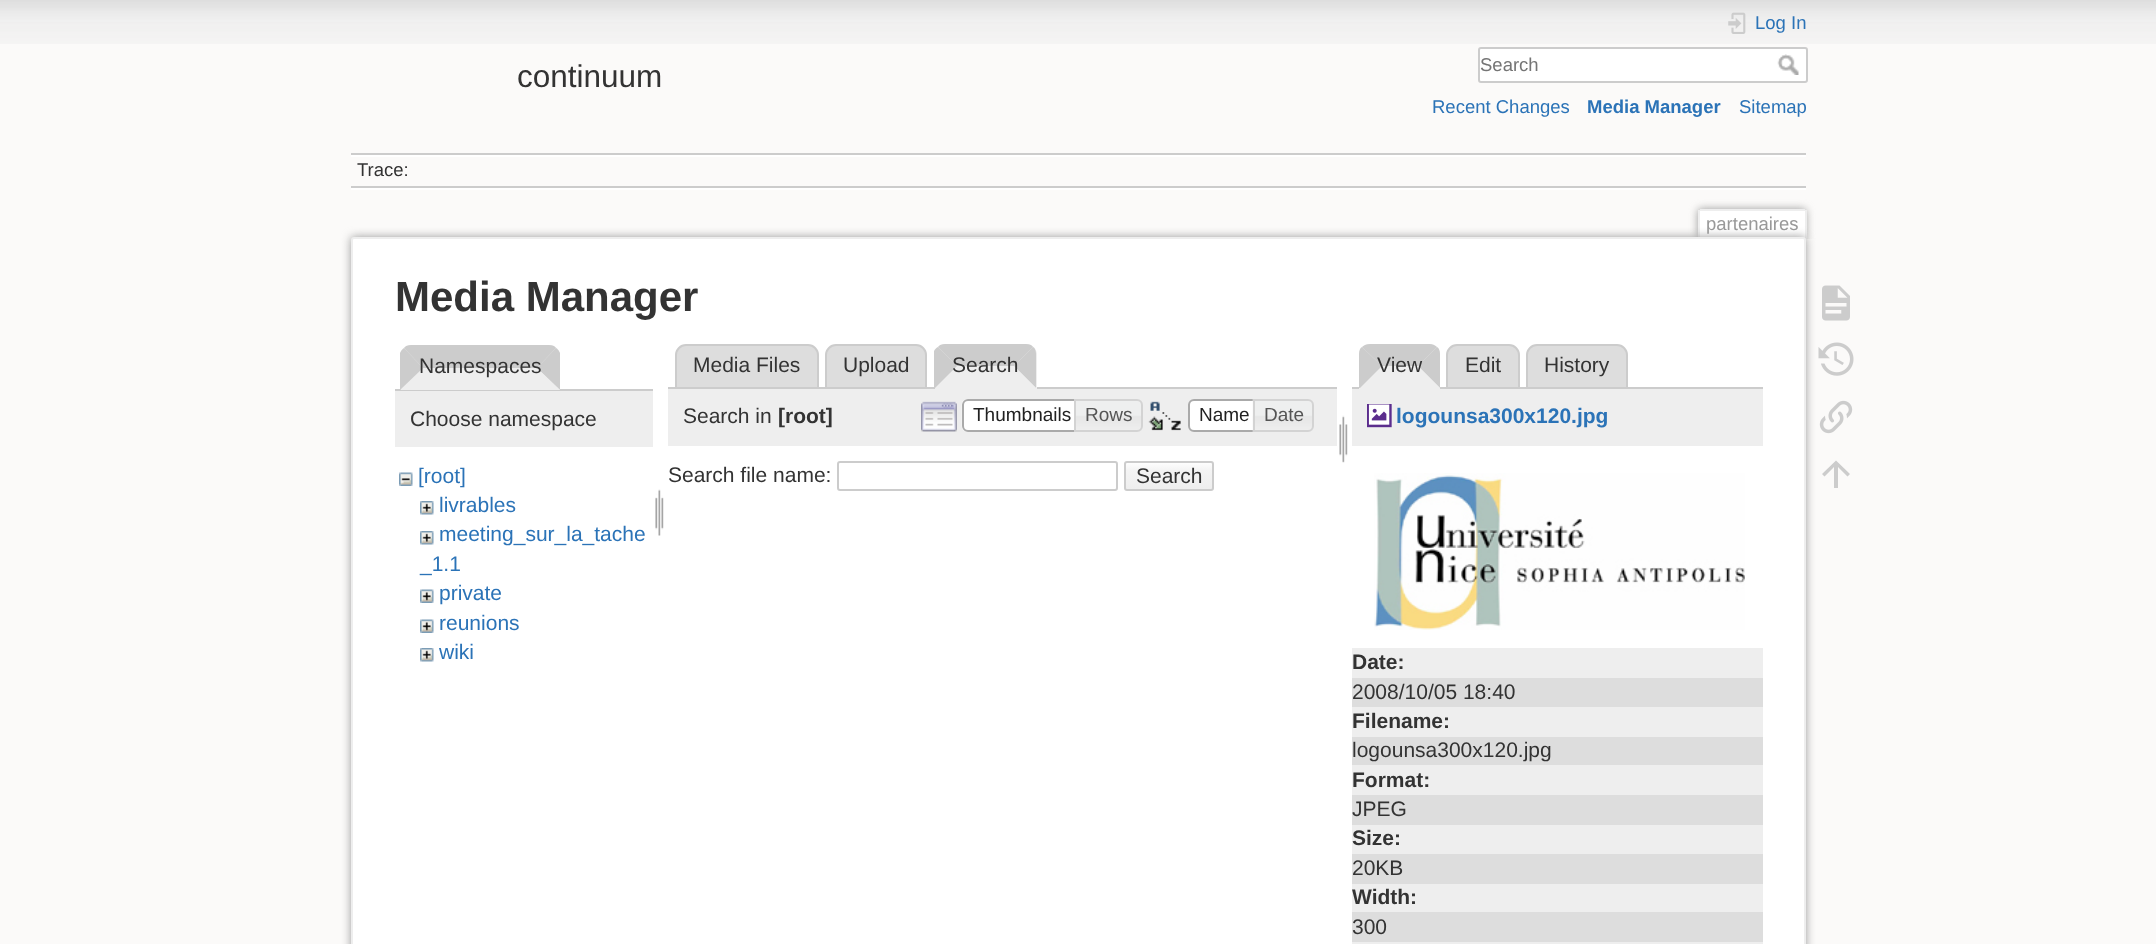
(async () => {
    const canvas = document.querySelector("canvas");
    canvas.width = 2156;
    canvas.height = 944;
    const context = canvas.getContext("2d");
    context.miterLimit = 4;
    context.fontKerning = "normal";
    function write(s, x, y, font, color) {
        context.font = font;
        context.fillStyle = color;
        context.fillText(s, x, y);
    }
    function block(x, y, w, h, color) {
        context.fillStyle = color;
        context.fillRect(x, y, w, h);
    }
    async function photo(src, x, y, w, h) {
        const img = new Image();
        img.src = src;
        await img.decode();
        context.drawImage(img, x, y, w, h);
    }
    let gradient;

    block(0, 0, 2156, 944, "rgb(251, 250, 249)");
    await photo("media/1.png", 0, 0, 2156, 44);
    write("continuum", 517, 87, "31.5px Liberation Sans", "rgb(51, 51, 51)");
    await photo("media/2.png", 1728, 12, 18, 22);
    write("Log In", 1755, 29, "18.5px Liberation Sans", "rgb(43, 115, 183)");
    context.fillStyle = "rgb(255, 255, 255)";
    context.beginPath();
    context.roundRect(1479, 48, 328, 34, 2);
    context.fill();
    context.strokeStyle = "rgb(204, 204, 204)";
    context.lineWidth = 2;
    context.stroke();
    write("Search", 1480, 71, "18.5px Liberation Sans", "rgb(117, 117, 117)");
    await photo("media/3.png", 1777, 54, 22, 21);
    write("Recent Changes", 1432, 113, "18.5px Liberation Sans", "rgb(43, 115, 183)");
    write("Media Manager", 1587, 113, "bold 18.5px Liberation Sans", "rgb(43, 115, 183)");
    write("Sitemap", 1739, 113, "18.5px Liberation Sans", "rgb(43, 115, 183)");
    block(351, 153, 1455, 2, "rgb(204, 204, 204)");
    block(351, 188, 1455, 2, "rgb(255, 255, 255)");
    block(351, 155, 1455, 2, "rgb(255, 255, 255)");
    block(351, 186, 1455, 2, "rgb(204, 204, 204)");
    write("Trace:", 357, 176, "18.5px Liberation Sans", "rgb(51, 51, 51)");
    context.save();
    context.beginPath();
    context.rect(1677, 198, 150, 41);
    context.clip();
    context.fillStyle = "rgb(153, 153, 153)";
    context.filter = "blur(4.5px)";
    context.beginPath();
    context.roundRect(1698, 209, 108, 30, 3);
    context.fill();
    context.filter = "none";
    context.restore();
    block(1700, 211, 105, 27, "rgb(255, 255, 255)");
    block(1700, 209, 105, 2, "rgb(238, 238, 238)");
    block(1805, 210, 2, 29, "rgb(238, 238, 238)");
    block(1698, 210, 2, 29, "rgb(238, 238, 238)");
    write("partenaires", 1706, 230, "18.5px Liberation Sans", "rgb(153, 153, 153)");
    context.filter = "blur(5px)";
    context.beginPath();
    context.roundRect(351, 237, 1455, 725, 3);
    context.fill();
    context.filter = "none";
    context.fillStyle = "rgb(255, 255, 255)";
    context.beginPath();
    context.roundRect(352, 238, 1453, 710, 2);
    context.fill();
    context.strokeStyle = "rgb(238, 238, 238)";
    context.stroke();
    write("Media Manager", 395, 311, "bold 42px Liberation Sans", "rgb(51, 51, 51)");
    block(395, 389, 258, 2, "rgb(204, 204, 204)");
    context.fillStyle = "rgb(238, 238, 238)";
    context.beginPath();
    context.roundRect(401, 345, 159, 45, [11, 11, 0, 0]);
    context.fill();
    context.fillStyle = "rgb(204, 204, 204)";
    context.beginPath();
    context.moveTo(411, 345);
    context.lineTo(549, 345);
    context.bezierCurveTo(552, 345, 555, 346, 556, 348);
    context.lineTo(537, 368);
    context.lineTo(423, 368);
    context.lineTo(404, 348);
    context.bezierCurveTo(405, 346, 408, 345, 411, 345);
    context.closePath();
    context.fill();
    context.beginPath();
    context.moveTo(556, 348);
    context.lineTo(537, 368);
    context.lineTo(560, 390);
    context.lineTo(560, 353);
    context.bezierCurveTo(559, 351, 558, 349, 556, 348);
    context.closePath();
    context.fill();
    context.fillStyle = "rgb(238, 238, 238)";
    context.beginPath();
    context.moveTo(560, 390);
    context.lineTo(537, 368);
    context.lineTo(423, 368);
    context.lineTo(400, 390);
    context.closePath();
    context.fill();
    context.fillStyle = "rgb(204, 204, 204)";
    context.beginPath();
    context.moveTo(400, 390);
    context.lineTo(423, 368);
    context.lineTo(404, 348);
    context.bezierCurveTo(402, 349, 401, 351, 400, 353);
    context.closePath();
    context.fill();
    write("Namespaces", 419, 373, "21px Liberation Sans", "rgb(51, 51, 51)");
    block(395, 391, 258, 56, "rgb(238, 238, 238)");
    write("Choose namespace", 410, 426, "21px Liberation Sans", "rgb(51, 51, 51)");
    await photo("media/4.png", 399, 472, 14, 14);
    write("[root]", 418, 483, "21px Liberation Sans", "rgb(43, 115, 183)");
    await photo("media/5.png", 420, 501, 14, 14);
    write("livrables", 439, 512, "21px Liberation Sans", "rgb(43, 115, 183)");
    await photo("media/5.png", 420, 531, 14, 14);
    write("meeting_sur_la_tache", 439, 541, "21px Liberation Sans", "rgb(43, 115, 183)");
    write("_1.1", 420, 571, "21px Liberation Sans", "rgb(43, 115, 183)");
    await photo("media/6.png", 420, 589, 14, 14);
    write("private", 439, 600, "21px Liberation Sans", "rgb(43, 115, 183)");
    await photo("media/6.png", 420, 619, 14, 14);
    write("reunions", 439, 630, "21px Liberation Sans", "rgb(43, 115, 183)");
    await photo("media/5.png", 420, 648, 14, 14);
    write("wiki", 439, 659, "21px Liberation Sans", "rgb(43, 115, 183)");
    await photo("media/7.png", 655, 489, 9, 47);
    context.fillStyle = "rgb(221, 221, 221)";
    context.beginPath();
    context.roundRect(676, 345, 142, 43, [10, 10, 0, 0]);
    context.fill();
    context.strokeStyle = "rgb(204, 204, 204)";
    context.stroke();
    write("Media Files", 693, 372, "21px Liberation Sans", "rgb(51, 51, 51)");
    context.fillStyle = "rgb(221, 221, 221)";
    context.beginPath();
    context.roundRect(826, 345, 100, 43, [10, 10, 0, 0]);
    context.fill();
    context.stroke();
    write("Upload", 843, 372, "21px Liberation Sans", "rgb(51, 51, 51)");
    block(668, 387, 669, 2, "rgb(204, 204, 204)");
    context.fillStyle = "rgb(238, 238, 238)";
    context.beginPath();
    context.roundRect(935, 344, 102, 45, [11, 11, 0, 0]);
    context.fill();
    context.fillStyle = "rgb(204, 204, 204)";
    context.beginPath();
    context.moveTo(945, 344);
    context.bezierCurveTo(942, 344, 939, 345, 938, 347);
    context.lineTo(957, 366);
    context.lineTo(1014, 366);
    context.lineTo(1033, 347);
    context.bezierCurveTo(1032, 345, 1029, 344, 1026, 344);
    context.closePath();
    context.fill();
    context.beginPath();
    context.moveTo(1036, 388);
    context.lineTo(1036, 354);
    context.bezierCurveTo(1036, 351, 1035, 348, 1033, 347);
    context.lineTo(1014, 366);
    context.closePath();
    context.fill();
    context.fillStyle = "rgb(238, 238, 238)";
    context.beginPath();
    context.moveTo(1036, 388);
    context.lineTo(1014, 366);
    context.lineTo(957, 366);
    context.lineTo(935, 388);
    context.closePath();
    context.fill();
    context.fillStyle = "rgb(204, 204, 204)";
    context.beginPath();
    context.moveTo(934, 351);
    context.bezierCurveTo(935, 349, 936, 348, 938, 347);
    context.lineTo(957, 366);
    context.lineTo(935, 388);
    context.lineTo(934, 388);
    context.closePath();
    context.fill();
    write("Search", 952, 372, "21px Liberation Sans", "rgb(51, 51, 51)");
    block(668, 389, 669, 57, "rgb(238, 238, 238)");
    write("Search in", 683, 423, "21px Liberation Sans", "rgb(51, 51, 51)");
    write("[root]", 778, 423, "bold 21px Liberation Sans", "rgb(51, 51, 51)");
    await photo("media/8.png", 921, 401, 36, 31);
    context.fillStyle = "rgb(255, 255, 255)";
    context.beginPath();
    context.roundRect(962, 399, 120, 33, [6, 0, 0, 6]);
    context.fill();
    await photo("media/9.png", 961, 399, 5, 33);
    context.beginPath();
    context.roundRect(963, 400, 118, 31, [5, 0, 0, 5]);
    context.strokeStyle = "rgb(170, 170, 170)";
    context.stroke();
    write("Thumbnails", 973, 421, "19px Liberation Sans", "rgb(33, 33, 33)");
    await photo("media/10.png", 1076, 399, 67, 33);
    context.beginPath();
    context.roundRect(1075, 400, 67, 31, [0, 5, 5, 0]);
    context.strokeStyle = "rgb(211, 211, 211)";
    context.stroke();
    write("Rows", 1085, 421, "19px Liberation Sans", "rgb(85, 85, 85)");
    await photo("media/11.png", 1148, 401, 33, 30);
    context.fillStyle = "rgb(255, 255, 255)";
    context.beginPath();
    context.roundRect(1189, 400, 70, 31, [5, 0, 0, 5]);
    context.fill();
    context.strokeStyle = "rgb(170, 170, 170)";
    context.stroke();
    write("Name", 1199, 421, "19px Liberation Sans", "rgb(33, 33, 33)");
    await photo("media/12.png", 1252, 399, 62, 33);
    context.beginPath();
    context.roundRect(1254, 400, 59, 31, [0, 5, 5, 0]);
    context.strokeStyle = "rgb(211, 211, 211)";
    context.stroke();
    write("Date", 1264, 421, "19px Liberation Sans", "rgb(85, 85, 85)");
    await photo("media/13.png", 1339, 415, 9, 48);
    write("Search file name:", 668, 482, "21px Liberation Sans", "rgb(51, 51, 51)");
    context.beginPath();
    context.roundRect(838, 462, 279, 28, 2);
    context.strokeStyle = "rgb(204, 204, 204)";
    context.stroke();
    context.save();
    context.beginPath();
    context.roundRect(1124, 461, 90, 30, 3);
    context.clip();
    gradient = context.createLinearGradient(1169, 462, 1169, 489);
    gradient.addColorStop(0, "rgb(255, 255, 255)");
    gradient.addColorStop(0.3, "rgb(244, 244, 244)");
    gradient.addColorStop(0.99, "rgb(238, 238, 238)");
    gradient.addColorStop(0.99, "rgb(204, 204, 204)");
    context.fillStyle = gradient;
    context.fillRect(1124, 462, 90, 27);
    context.restore();
    context.beginPath();
    context.roundRect(1125, 462, 88, 28, 2);
    context.stroke();
    write("Search", 1136, 483, "21px Liberation Sans", "rgb(51, 51, 51)");
    context.fillStyle = "rgb(221, 221, 221)";
    context.beginPath();
    context.roundRect(1447, 345, 72, 43, [10, 10, 0, 0]);
    context.fill();
    context.stroke();
    context.beginPath();
    context.roundRect(1527, 345, 100, 43, [10, 10, 0, 0]);
    context.fill();
    context.stroke();
    block(1352, 387, 411, 2, "rgb(204, 204, 204)");
    context.fillStyle = "rgb(238, 238, 238)";
    context.beginPath();
    context.roundRect(1359, 344, 81, 45, [11, 11, 0, 0]);
    context.fill();
    context.fillStyle = "rgb(204, 204, 204)";
    context.beginPath();
    context.moveTo(1370, 344);
    context.bezierCurveTo(1367, 344, 1364, 345, 1362, 347);
    context.lineTo(1382, 366);
    context.lineTo(1418, 366);
    context.lineTo(1437, 347);
    context.bezierCurveTo(1435, 345, 1432, 344, 1430, 344);
    context.closePath();
    context.fill();
    context.beginPath();
    context.moveTo(1440, 388);
    context.lineTo(1418, 366);
    context.lineTo(1437, 347);
    context.bezierCurveTo(1439, 348, 1440, 351, 1440, 354);
    context.closePath();
    context.fill();
    context.fillStyle = "rgb(238, 238, 238)";
    context.beginPath();
    context.moveTo(1440, 388);
    context.lineTo(1418, 366);
    context.lineTo(1382, 366);
    context.lineTo(1360, 388);
    context.closePath();
    context.fill();
    context.fillStyle = "rgb(204, 204, 204)";
    context.beginPath();
    context.moveTo(1359, 354);
    context.bezierCurveTo(1359, 351, 1360, 348, 1362, 347);
    context.lineTo(1382, 366);
    context.lineTo(1360, 388);
    context.lineTo(1359, 388);
    context.closePath();
    context.fill();
    write("View", 1377, 372, "21px Liberation Sans", "rgb(51, 51, 51)");
    write("Edit", 1465, 372, "21px Liberation Sans", "rgb(51, 51, 51)");
    write("History", 1544, 372, "21px Liberation Sans", "rgb(51, 51, 51)");
    block(1352, 389, 411, 57, "rgb(238, 238, 238)");
    await photo("media/14.png", 1367, 404, 25, 24);
    write("logounsa300x120.jpg", 1396, 423, "bold 21px Liberation Sans", "rgb(43, 115, 183)");
    await photo("media/15.png", 1374, 473, 371, 157);
    block(1352, 648, 411, 30, "rgb(238, 238, 238)");
    write("Date:", 1352, 669, "bold 21px Liberation Sans", "rgb(51, 51, 51)");
    block(1352, 678, 411, 29, "rgb(221, 221, 221)");
    write("2008/10/05 18:40", 1352, 699, "21px Liberation Sans", "rgb(51, 51, 51)");
    block(1352, 707, 411, 30, "rgb(238, 238, 238)");
    write("Filename:", 1352, 728, "bold 21px Liberation Sans", "rgb(51, 51, 51)");
    block(1352, 737, 411, 28, "rgb(221, 221, 221)");
    write("logounsa300x120.jpg", 1352, 757, "21px Liberation Sans", "rgb(51, 51, 51)");
    block(1352, 765, 411, 30, "rgb(238, 238, 238)");
    write("Format:", 1352, 787, "bold 21px Liberation Sans", "rgb(51, 51, 51)");
    block(1352, 795, 411, 30, "rgb(221, 221, 221)");
    write("JPEG", 1352, 816, "21px Liberation Sans", "rgb(51, 51, 51)");
    block(1352, 825, 411, 29, "rgb(238, 238, 238)");
    write("Size:", 1352, 845, "bold 21px Liberation Sans", "rgb(51, 51, 51)");
    block(1352, 854, 411, 30, "rgb(221, 221, 221)");
    write("20KB", 1352, 875, "21px Liberation Sans", "rgb(51, 51, 51)");
    block(1352, 884, 411, 28, "rgb(238, 238, 238)");
    write("Width:", 1352, 904, "bold 21px Liberation Sans", "rgb(51, 51, 51)");
    block(1352, 912, 411, 30, "rgb(221, 221, 221)");
    write("300", 1352, 934, "21px Liberation Sans", "rgb(51, 51, 51)");
    block(1352, 942, 411, 2, "rgb(238, 238, 238)");
    await photo("media/16.png", 1822, 285, 28, 36);
    await photo("media/17.png", 1818, 342, 36, 34);
    await photo("media/18.png", 1819, 400, 34, 34);
    context.fillStyle = "rgb(204, 204, 204)";
    context.beginPath();
    context.moveTo(1838, 488);
    context.lineTo(1834, 488);
    context.lineTo(1834, 467);
    context.lineTo(1824.5, 476.5);
    context.lineTo(1822, 474);
    context.lineTo(1836, 460.5);
    context.lineTo(1850, 474);
    context.lineTo(1847.5, 476.5);
    context.lineTo(1838, 467);
    context.closePath();
    context.fill();
})();
